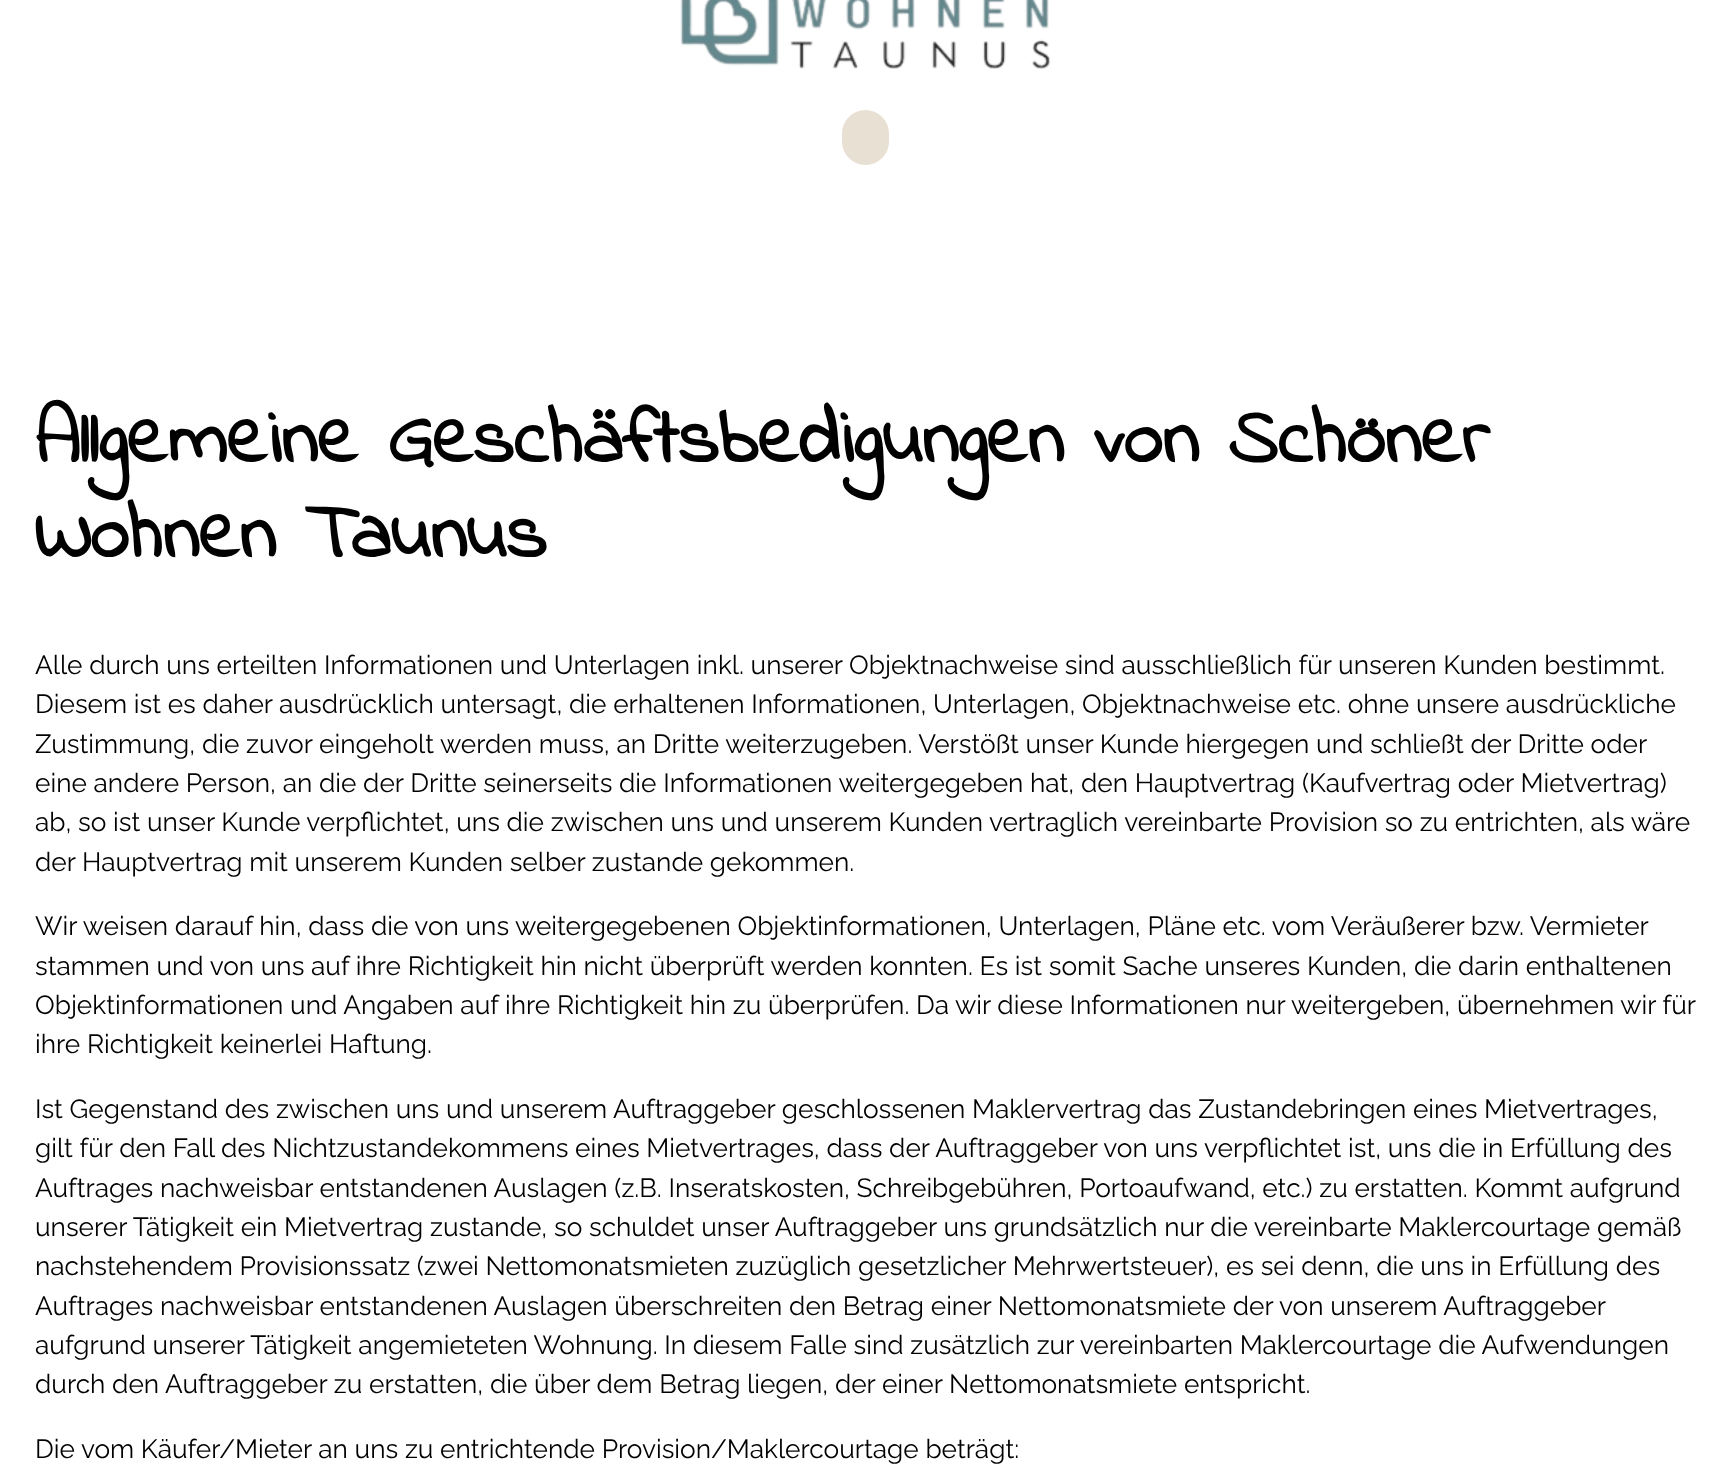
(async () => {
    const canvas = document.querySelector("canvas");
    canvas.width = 1730;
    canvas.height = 1484;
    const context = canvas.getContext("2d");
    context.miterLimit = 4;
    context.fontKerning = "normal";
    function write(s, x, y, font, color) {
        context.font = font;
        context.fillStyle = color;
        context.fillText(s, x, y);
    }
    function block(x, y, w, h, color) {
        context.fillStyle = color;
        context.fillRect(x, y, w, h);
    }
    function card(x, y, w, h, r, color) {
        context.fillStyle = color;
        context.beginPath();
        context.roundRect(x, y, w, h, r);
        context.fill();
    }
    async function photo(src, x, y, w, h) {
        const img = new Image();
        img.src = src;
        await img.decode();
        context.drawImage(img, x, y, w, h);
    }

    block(0, 0, 1730, 1484, "rgb(255, 255, 255)");
    await photo("media/1.png", 680, 0, 371, 69);
    card(842, 110, 47, 55, 23.5, "rgb(232, 224, 210)");
    write("Allgemeine Geschäftsbedigungen von Schöner", 35, 462, "bold 78.75px Indie Flower", "rgb(0, 0, 0)");
    write("Wohnen Taunus", 35, 557, "bold 78.75px Indie Flower", "rgb(0, 0, 0)");
    write("Alle durch uns erteilten Informationen und Unterlagen inkl. unserer Objektnachweise sind ausschließlich für unseren Kunden bestimmt.", 35, 674, "26.25px Raleway", "rgb(0, 0, 0)");
    write("Diesem ist es daher ausdrücklich untersagt, die erhaltenen Informationen, Unterlagen, Objektnachweise etc. ohne unsere ausdrückliche", 35, 713, "26.25px Raleway", "rgb(0, 0, 0)");
    write("Zustimmung, die zuvor eingeholt werden muss, an Dritte weiterzugeben. Verstößt unser Kunde hiergegen und schließt der Dritte oder", 35, 753, "26.25px Raleway", "rgb(0, 0, 0)");
    write("eine andere Person, an die der Dritte seinerseits die Informationen weitergegeben hat, den Hauptvertrag (Kaufvertrag oder Mietvertrag)", 35, 792, "26.25px Raleway", "rgb(0, 0, 0)");
    write("ab, so ist unser Kunde verpflichtet, uns die zwischen uns und unserem Kunden vertraglich vereinbarte Provision so zu entrichten, als wäre", 35, 831, "26.25px Raleway", "rgb(0, 0, 0)");
    write("der Hauptvertrag mit unserem Kunden selber zustande gekommen.", 35, 871, "26.25px Raleway", "rgb(0, 0, 0)");
    write("Wir weisen darauf hin, dass die von uns weitergegebenen Objektinformationen, Unterlagen, Pläne etc. vom Veräußerer bzw. Vermieter", 35, 935, "26.25px Raleway", "rgb(0, 0, 0)");
    write("stammen und von uns auf ihre Richtigkeit hin nicht überprüft werden konnten. Es ist somit Sache unseres Kunden, die darin enthaltenen", 35, 975, "26.25px Raleway", "rgb(0, 0, 0)");
    write("Objektinformationen und Angaben auf ihre Richtigkeit hin zu überprüfen. Da wir diese Informationen nur weitergeben, übernehmen wir für", 35, 1014, "26.25px Raleway", "rgb(0, 0, 0)");
    write("ihre Richtigkeit keinerlei Haftung.", 35, 1053, "26.25px Raleway", "rgb(0, 0, 0)");
    write("Ist Gegenstand des zwischen uns und unserem Auftraggeber geschlossenen Maklervertrag das Zustandebringen eines Mietvertrages,", 35, 1118, "26.25px Raleway", "rgb(0, 0, 0)");
    write("gilt für den Fall des Nichtzustandekommens eines Mietvertrages, dass der Auftraggeber von uns verpflichtet ist, uns die in Erfüllung des", 35, 1157, "26.25px Raleway", "rgb(0, 0, 0)");
    write("Auftrages nachweisbar entstandenen Auslagen (z.B. Inseratskosten, Schreibgebühren, Portoaufwand, etc.) zu erstatten. Kommt aufgrund", 35, 1197, "26.25px Raleway", "rgb(0, 0, 0)");
    write("unserer Tätigkeit ein Mietvertrag zustande, so schuldet unser Auftraggeber uns grundsätzlich nur die vereinbarte Maklercourtage gemäß", 35, 1236, "26.25px Raleway", "rgb(0, 0, 0)");
    write("nachstehendem Provisionssatz (zwei Nettomonatsmieten zuzüglich gesetzlicher Mehrwertsteuer), es sei denn, die uns in Erfüllung des", 35, 1275, "26.25px Raleway", "rgb(0, 0, 0)");
    write("Auftrages nachweisbar entstandenen Auslagen überschreiten den Betrag einer Nettomonatsmiete der von unserem Auftraggeber", 35, 1315, "26.25px Raleway", "rgb(0, 0, 0)");
    write("aufgrund unserer Tätigkeit angemieteten Wohnung. In diesem Falle sind zusätzlich zur vereinbarten Maklercourtage die Aufwendungen", 35, 1354, "26.25px Raleway", "rgb(0, 0, 0)");
    write("durch den Auftraggeber zu erstatten, die über dem Betrag liegen, der einer Nettomonatsmiete entspricht.", 35, 1393, "26.25px Raleway", "rgb(0, 0, 0)");
    write("Die vom Käufer/Mieter an uns zu entrichtende Provision/Maklercourtage beträgt:", 35, 1458, "26.25px Raleway", "rgb(0, 0, 0)");
})();
